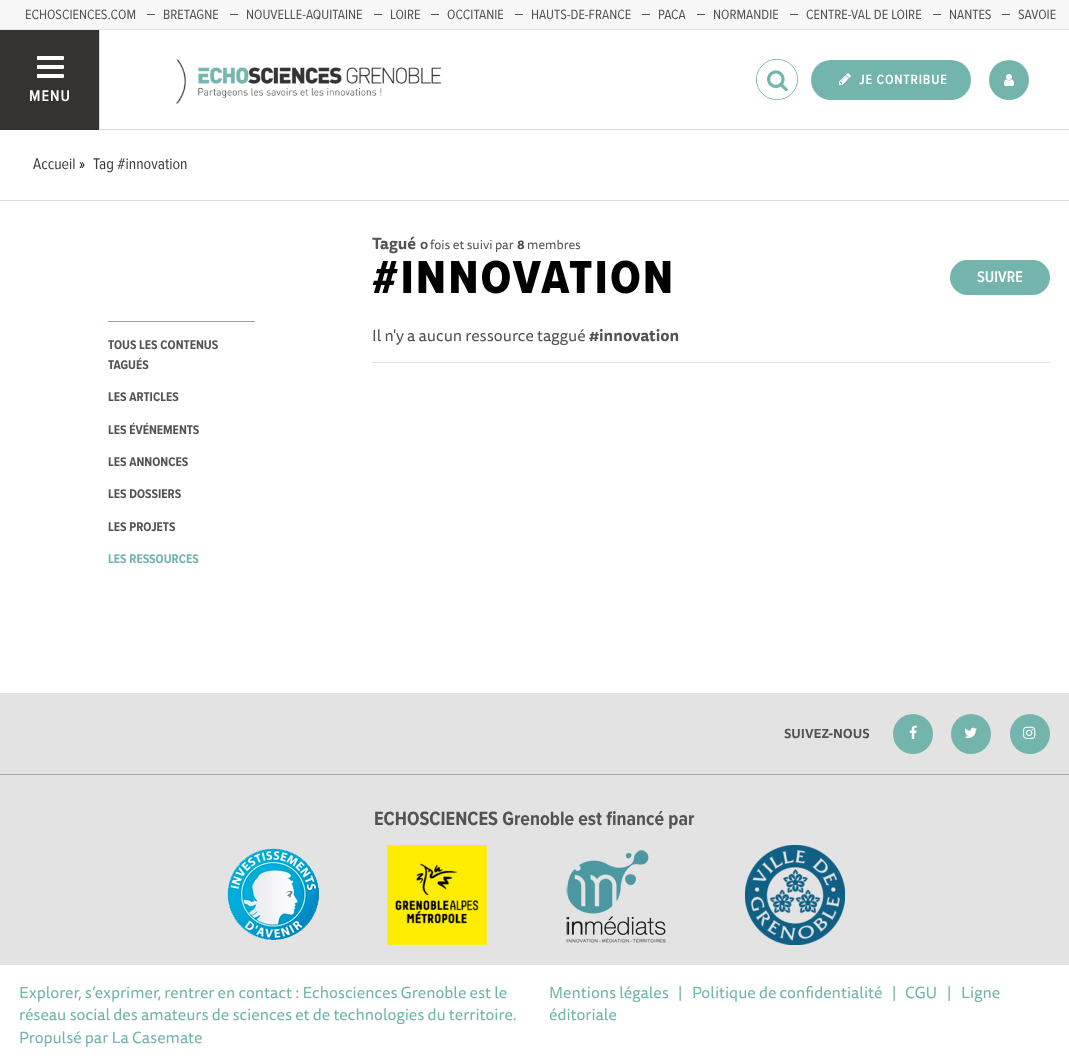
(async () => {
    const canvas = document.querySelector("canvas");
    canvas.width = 1069;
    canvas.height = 1064;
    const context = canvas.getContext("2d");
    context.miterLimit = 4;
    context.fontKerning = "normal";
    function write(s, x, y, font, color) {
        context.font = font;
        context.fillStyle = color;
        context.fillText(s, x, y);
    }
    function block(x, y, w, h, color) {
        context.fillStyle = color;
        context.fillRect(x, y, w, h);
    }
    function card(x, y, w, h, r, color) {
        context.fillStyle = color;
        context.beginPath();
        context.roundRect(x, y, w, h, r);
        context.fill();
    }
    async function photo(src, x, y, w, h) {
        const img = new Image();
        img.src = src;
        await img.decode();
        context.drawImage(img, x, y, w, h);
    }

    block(0, 0, 1069, 1064, "rgb(255, 255, 255)");
    block(0, 0, 1069, 29, "rgb(247, 247, 247)");
    block(0, 29, 1069, 1, "rgb(227, 227, 227)");
    write("ECHOSCIENCES.COM", 25, 19, "14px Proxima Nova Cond", "rgb(83, 83, 83)");
    block(147, 14, 8, 1, "rgb(83, 83, 83)");
    write("BRETAGNE", 163, 19, "14px Proxima Nova Cond", "rgb(83, 83, 83)");
    block(230, 14, 8, 1, "rgb(83, 83, 83)");
    write("NOUVELLE-AQUITAINE", 246, 19, "14px Proxima Nova Cond", "rgb(83, 83, 83)");
    block(374, 14, 8, 1, "rgb(83, 83, 83)");
    write("LOIRE", 390, 19, "14px Proxima Nova Cond", "rgb(83, 83, 83)");
    block(431, 14, 8, 1, "rgb(83, 83, 83)");
    write("OCCITANIE", 447, 19, "14px Proxima Nova Cond", "rgb(83, 83, 83)");
    block(515, 14, 8, 1, "rgb(83, 83, 83)");
    write("HAUTS-DE-FRANCE", 531, 19, "14px Proxima Nova Cond", "rgb(83, 83, 83)");
    block(642, 14, 8, 1, "rgb(83, 83, 83)");
    write("PACA", 658, 19, "14px Proxima Nova Cond", "rgb(83, 83, 83)");
    block(697, 14, 8, 1, "rgb(83, 83, 83)");
    write("NORMANDIE", 713, 19, "14px Proxima Nova Cond", "rgb(83, 83, 83)");
    block(790, 14, 8, 1, "rgb(83, 83, 83)");
    write("CENTRE-VAL DE LOIRE", 806, 19, "14px Proxima Nova Cond", "rgb(83, 83, 83)");
    block(933, 14, 8, 1, "rgb(83, 83, 83)");
    write("NANTES", 949, 19, "14px Proxima Nova Cond", "rgb(83, 83, 83)");
    block(1002, 14, 8, 1, "rgb(83, 83, 83)");
    write("SAVOIE", 1018, 19, "14px Proxima Nova Cond", "rgb(83, 83, 83)");
    block(100, 129, 969, 1, "rgb(221, 221, 221)");
    await photo("media/1.png", 176, 59, 266, 45);
    context.beginPath();
    context.roundRect(756.5, 59.5, 41, 40, 20);
    context.strokeStyle = "rgb(115, 180, 172)";
    context.stroke();
    card(757, 60, 40, 39, 19.5, "rgb(255, 255, 255)");
    await photo("media/2.png", 767, 70, 21, 22);
    card(811, 60, 160, 40, 20, "rgb(115, 180, 172)");
    await photo("media/3.png", 839, 73, 12, 12);
    context.letterSpacing = "0.75px";
    write("JE CONTRIBUE", 859, 84, "600 14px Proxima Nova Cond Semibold", "rgb(255, 255, 255)");
    context.fillStyle = "rgb(115, 180, 172)";
    context.beginPath();
    context.arc(1009, 80, 20, 0, Math.PI * 2);
    context.fill();
    await photo("media/4.png", 1004, 74, 10, 12);
    block(0, 30, 99, 100, "rgb(53, 51, 50)");
    block(99, 30, 1, 100, "rgb(221, 221, 221)");
    card(36, 56, 28, 4, 1, "rgb(255, 255, 255)");
    block(36, 56, 1, 4, "rgb(53, 51, 50)");
    card(36, 65, 28, 4, 1, "rgb(255, 255, 255)");
    block(36, 65, 1, 4, "rgb(53, 51, 50)");
    card(36, 74, 28, 4, 1, "rgb(255, 255, 255)");
    block(36, 74, 1, 4, "rgb(53, 51, 50)");
    context.letterSpacing = "1px";
    write("MENU", 29, 101, "600 16px Proxima Nova Cond Semibold", "rgb(255, 255, 255)");
    block(0, 200, 1069, 1, "rgb(221, 221, 221)");
    context.letterSpacing = "0px";
    write("Accueil", 33, 169, "16px Proxima Nova Cond", "rgb(59, 57, 56)");
    write("»", 79, 169, "16px Proxima Nova Cond", "rgb(0, 0, 0)");
    write("Tag #innovation", 93, 169, "16px Proxima Nova Cond", "rgb(59, 57, 56)");
    write("Tagué", 372, 249, "bold 16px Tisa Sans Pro", "rgb(83, 83, 83)");
    write("0", 420, 249, "bold 12.75px Tisa Sans Pro", "rgb(83, 83, 83)");
    write("fois et suivi par", 430, 249, "12.75px Tisa Sans Pro", "rgb(83, 83, 83)");
    write("8", 517, 249, "bold 12.75px Tisa Sans Pro", "rgb(83, 83, 83)");
    write("membres", 527, 249, "12.75px Tisa Sans Pro", "rgb(83, 83, 83)");
    context.letterSpacing = "2.4px";
    write("#INNOVATION", 372, 293, "800 48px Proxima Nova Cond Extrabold", "rgb(0, 0, 0)");
    card(950, 260, 100, 35, 17.5, "rgb(115, 180, 172)");
    context.letterSpacing = "0px";
    write("SUIVRE", 977, 282, "600 16px Proxima Nova Cond Semibold", "rgb(255, 255, 255)");
    write("Il n'y a aucun ressource taggué", 372, 341, "16px Tisa Sans Pro", "rgb(83, 83, 83)");
    write("#innovation", 589, 341, "bold 16px Tisa Sans Pro", "rgb(83, 83, 83)");
    block(372, 362, 678, 1, "rgb(227, 227, 227)");
    block(108, 321, 147, 1, "rgb(115, 180, 172)");
    write("TOUS LES CONTENUS", 108, 349, "bold 13px Proxima Nova Cond", "rgb(83, 83, 83)");
    write("TAGUÉS", 108, 369, "bold 13px Proxima Nova Cond", "rgb(83, 83, 83)");
    write("LES ARTICLES", 108, 401, "bold 13px Proxima Nova Cond", "rgb(83, 83, 83)");
    write("LES ÉVÉNEMENTS", 108, 434, "bold 13px Proxima Nova Cond", "rgb(83, 83, 83)");
    write("LES ANNONCES", 108, 466, "bold 13px Proxima Nova Cond", "rgb(83, 83, 83)");
    write("LES DOSSIERS", 108, 498, "bold 13px Proxima Nova Cond", "rgb(83, 83, 83)");
    write("LES PROJETS", 108, 531, "bold 13px Proxima Nova Cond", "rgb(83, 83, 83)");
    write("LES RESSOURCES", 108, 563, "bold 13px Proxima Nova Cond", "rgb(115, 180, 172)");
    block(0, 693, 1069, 81, "rgb(227, 227, 227)");
    write("SUIVEZ-NOUS", 784, 738, "bold 12.75px Tisa Sans Pro", "rgb(83, 83, 83)");
    context.fillStyle = "rgb(115, 180, 172)";
    context.beginPath();
    context.arc(913, 734, 20, 0, Math.PI * 2);
    context.fill();
    await photo("media/5.png", 909, 725, 8, 14);
    context.beginPath();
    context.arc(971, 734, 20, 0, Math.PI * 2);
    context.fill();
    await photo("media/6.png", 964, 727, 13, 11);
    context.beginPath();
    context.arc(1030, 734, 20, 0, Math.PI * 2);
    context.fill();
    await photo("media/7.png", 1023, 726, 13, 13);
    block(0, 775, 1069, 190, "rgb(227, 227, 227)");
    block(0, 774, 1069, 1, "rgb(164, 164, 164)");
    write("ECHOSCIENCES Grenoble est financé par", 374, 825, "bold 20px Proxima Nova Cond", "rgb(83, 83, 83)");
    await photo("media/8.png", 227, 848, 92, 92);
    await photo("media/9.png", 387, 845, 100, 100);
    await photo("media/10.png", 566, 850, 100, 93);
    await photo("media/11.png", 745, 845, 100, 100);
    write("Explorer, s’exprimer, rentrer en contact : Echosciences Grenoble est le", 19, 998, "16px Tisa Sans Pro", "rgb(115, 180, 172)");
    write("réseau social des amateurs de sciences et de technologies du territoire.", 19, 1020, "16px Tisa Sans Pro", "rgb(115, 180, 172)");
    write("Propulsé par La Casemate", 19, 1043, "16px Tisa Sans Pro", "rgb(115, 180, 172)");
    write("Mentions légales", 549, 998, "16px Tisa Sans Pro", "rgb(115, 180, 172)");
    write("|", 678, 998, "16px Tisa Sans Pro", "rgb(115, 180, 172)");
    write("Politique de confidentialité", 692, 998, "16px Tisa Sans Pro", "rgb(115, 180, 172)");
    write("|", 892, 998, "16px Tisa Sans Pro", "rgb(115, 180, 172)");
    write("CGU", 905, 998, "16px Tisa Sans Pro", "rgb(115, 180, 172)");
    write("|", 947, 998, "16px Tisa Sans Pro", "rgb(115, 180, 172)");
    write("Ligne", 961, 998, "16px Tisa Sans Pro", "rgb(115, 180, 172)");
    write("éditoriale", 549, 1020, "16px Tisa Sans Pro", "rgb(115, 180, 172)");
})();
